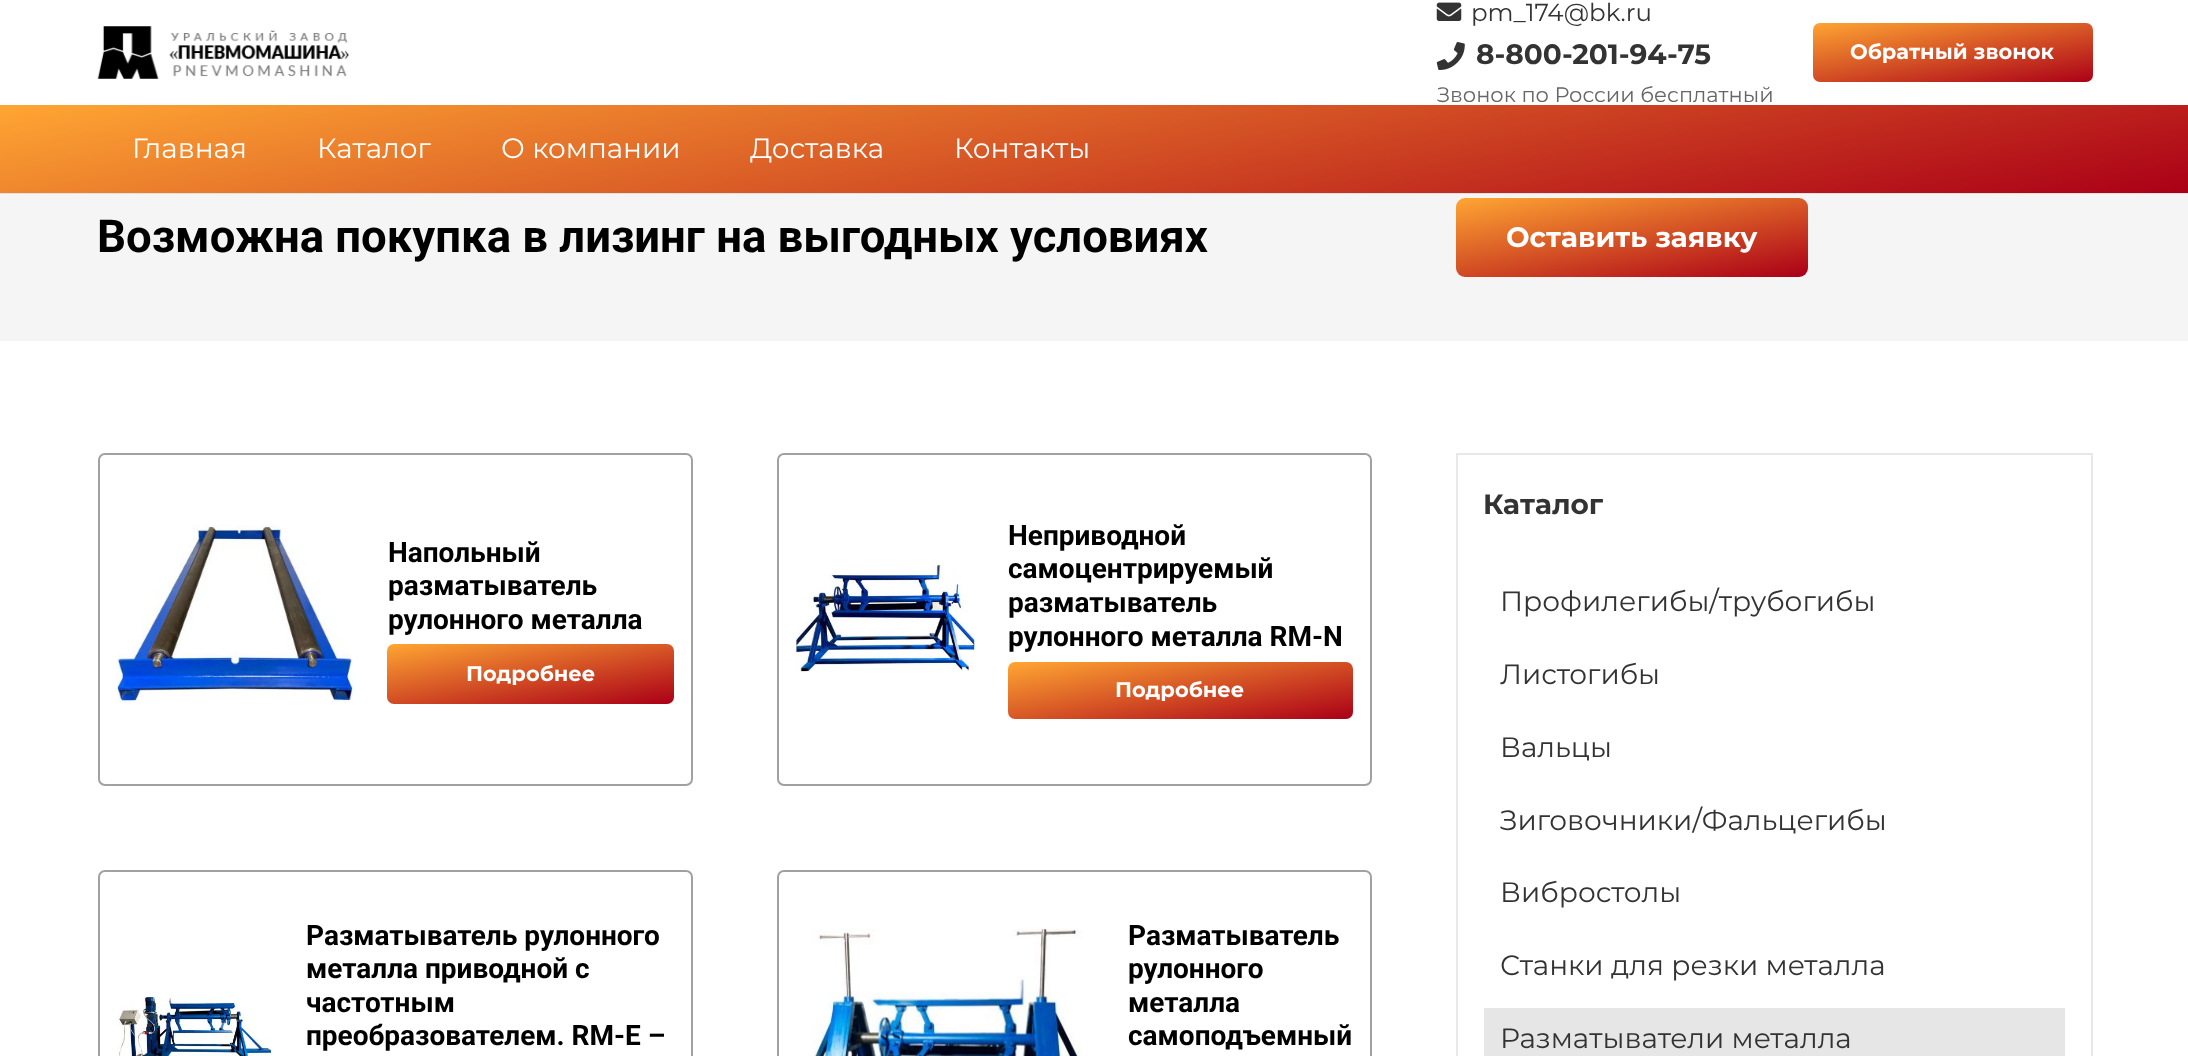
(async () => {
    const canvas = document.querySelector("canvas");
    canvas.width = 2188;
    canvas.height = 1056;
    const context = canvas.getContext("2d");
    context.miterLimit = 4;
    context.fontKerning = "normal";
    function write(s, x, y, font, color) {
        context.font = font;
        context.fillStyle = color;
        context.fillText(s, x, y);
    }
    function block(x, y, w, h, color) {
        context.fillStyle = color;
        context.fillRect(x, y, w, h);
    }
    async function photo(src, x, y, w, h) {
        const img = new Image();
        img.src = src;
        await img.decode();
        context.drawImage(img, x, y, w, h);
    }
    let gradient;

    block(0, 0, 2188, 1056, "rgb(255, 255, 255)");
    await photo("media/1.png", 97, 26, 252, 53);
    await photo("media/2.png", 1436, 2, 26, 19);
    write("pm_174@bk.ru", 1471, 21, "24.5px Montserrat", "rgb(51, 51, 51)");
    await photo("media/3.png", 1436, 42, 29, 28);
    write("8-800-201-94-75", 1476, 64, "bold 28px Montserrat", "rgb(51, 51, 51)");
    write("Звонок по России бесплатный", 1437, 102, "21px Montserrat", "rgb(102, 102, 102)");
    gradient = context.createLinearGradient(1944, -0.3, 1962, 105);
    gradient.addColorStop(0, "rgb(255, 166, 51)");
    gradient.addColorStop(1, "rgb(171, 0, 23)");
    context.fillStyle = gradient;
    context.beginPath();
    context.roundRect(1813, 23, 280, 59, 7);
    context.fill();
    write("Обратный звонок", 1850, 59, "bold 21px Montserrat", "rgb(255, 255, 255)");
    block(0, 193, 2188, 1, "rgb(225, 225, 225)");
    gradient = context.createLinearGradient(1054, -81, 1135, 378);
    gradient.addColorStop(0, "rgb(255, 166, 51)");
    gradient.addColorStop(1, "rgb(171, 0, 23)");
    context.fillStyle = gradient;
    context.fillRect(0, 105, 2188, 88);
    write("Главная", 132, 158, "28px Montserrat", "rgb(255, 255, 255)");
    write("Каталог", 317, 158, "28px Montserrat", "rgb(255, 255, 255)");
    write("О компании", 501, 158, "28px Montserrat", "rgb(255, 255, 255)");
    write("Доставка", 750, 158, "28px Montserrat", "rgb(255, 255, 255)");
    write("Контакты", 954, 158, "28px Montserrat", "rgb(255, 255, 255)");
    block(0, 194, 2188, 147, "rgb(245, 245, 245)");
    write("Возможна покупка в лизинг на выгодных условиях", 97, 252, "bold 45.5px Roboto", "rgb(0, 0, 0)");
    gradient = context.createLinearGradient(1620, 169, 1644, 305);
    gradient.addColorStop(0, "rgb(255, 166, 51)");
    gradient.addColorStop(1, "rgb(171, 0, 23)");
    context.fillStyle = gradient;
    context.beginPath();
    context.roundRect(1456, 198, 352, 79, 9);
    context.fill();
    write("Оставить заявку", 1506, 247, "bold 28px Montserrat", "rgb(255, 255, 255)");
    context.beginPath();
    context.roundRect(99, 454, 593, 331, 6);
    context.strokeStyle = "rgb(161, 161, 161)";
    context.lineWidth = 2;
    context.stroke();
    await photo("media/4.png", 117, 525, 237, 178);
    write("Напольный", 388, 562, "bold 28px Roboto", "rgb(0, 0, 0)");
    write("разматыватель", 388, 595, "bold 28px Roboto", "rgb(0, 0, 0)");
    write("рулонного металла", 388, 629, "bold 28px Roboto", "rgb(0, 0, 0)");
    gradient = context.createLinearGradient(521, 620, 540, 727);
    gradient.addColorStop(0, "rgb(255, 166, 51)");
    gradient.addColorStop(1, "rgb(171, 0, 23)");
    context.fillStyle = gradient;
    context.beginPath();
    context.roundRect(387, 644, 287, 60, 7);
    context.fill();
    write("Подробнее", 466, 681, "bold 21px Montserrat", "rgb(255, 255, 255)");
    context.beginPath();
    context.roundRect(778, 454, 593, 331, 6);
    context.stroke();
    await photo("media/5.png", 796, 564, 179, 108);
    write("Неприводной", 1008, 545, "bold 28px Roboto", "rgb(0, 0, 0)");
    write("самоцентрируемый", 1008, 578, "bold 28px Roboto", "rgb(0, 0, 0)");
    write("разматыватель", 1008, 612, "bold 28px Roboto", "rgb(0, 0, 0)");
    write("рулонного металла RM-N", 1008, 646, "bold 28px Roboto", "rgb(0, 0, 0)");
    gradient = context.createLinearGradient(1170, 633, 1191, 748);
    gradient.addColorStop(0, "rgb(255, 166, 51)");
    gradient.addColorStop(1, "rgb(171, 0, 23)");
    context.fillStyle = gradient;
    context.beginPath();
    context.roundRect(1008, 662, 345, 57, 7);
    context.fill();
    write("Подробнее", 1115, 697, "bold 21px Montserrat", "rgb(255, 255, 255)");
    context.beginPath();
    context.roundRect(99, 871, 593, 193, 6);
    context.stroke();
    await photo("media/6.png", 117, 997, 155, 59);
    write("Разматыватель рулонного", 306, 945, "bold 28px Roboto", "rgb(0, 0, 0)");
    write("металла приводной с", 306, 978, "bold 28px Roboto", "rgb(0, 0, 0)");
    write("частотным", 306, 1012, "bold 28px Roboto", "rgb(0, 0, 0)");
    write("преобразователем. RM-E –", 306, 1045, "bold 28px Roboto", "rgb(0, 0, 0)");
    context.beginPath();
    context.roundRect(778, 871, 593, 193, 6);
    context.stroke();
    await photo("media/7.png", 812, 928, 270, 128);
    write("Разматыватель", 1128, 945, "bold 28px Roboto", "rgb(0, 0, 0)");
    write("рулонного", 1128, 978, "bold 28px Roboto", "rgb(0, 0, 0)");
    write("металла", 1128, 1012, "bold 28px Roboto", "rgb(0, 0, 0)");
    write("самоподъемный", 1128, 1045, "bold 28px Roboto", "rgb(0, 0, 0)");
    context.strokeStyle = "rgb(232, 232, 232)";
    context.strokeRect(1457, 454, 635, 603);
    write("Каталог", 1483, 514, "bold 28px Montserrat", "rgb(51, 51, 51)");
    write("Профилегибы/трубогибы", 1500, 611, "28px Montserrat", "rgb(51, 51, 51)");
    write("Листогибы", 1500, 684, "28px Montserrat", "rgb(51, 51, 51)");
    write("Вальцы", 1500, 757, "28px Montserrat", "rgb(51, 51, 51)");
    write("Зиговочники/Фальцегибы", 1500, 830, "28px Montserrat", "rgb(51, 51, 51)");
    write("Вибростолы", 1500, 902, "28px Montserrat", "rgb(51, 51, 51)");
    write("Станки для резки металла", 1500, 975, "28px Montserrat", "rgb(51, 51, 51)");
    block(1484, 1008, 581, 48, "rgb(230, 230, 230)");
    write("Разматыватели металла", 1500, 1048, "28px Montserrat", "rgb(51, 51, 51)");
})();
